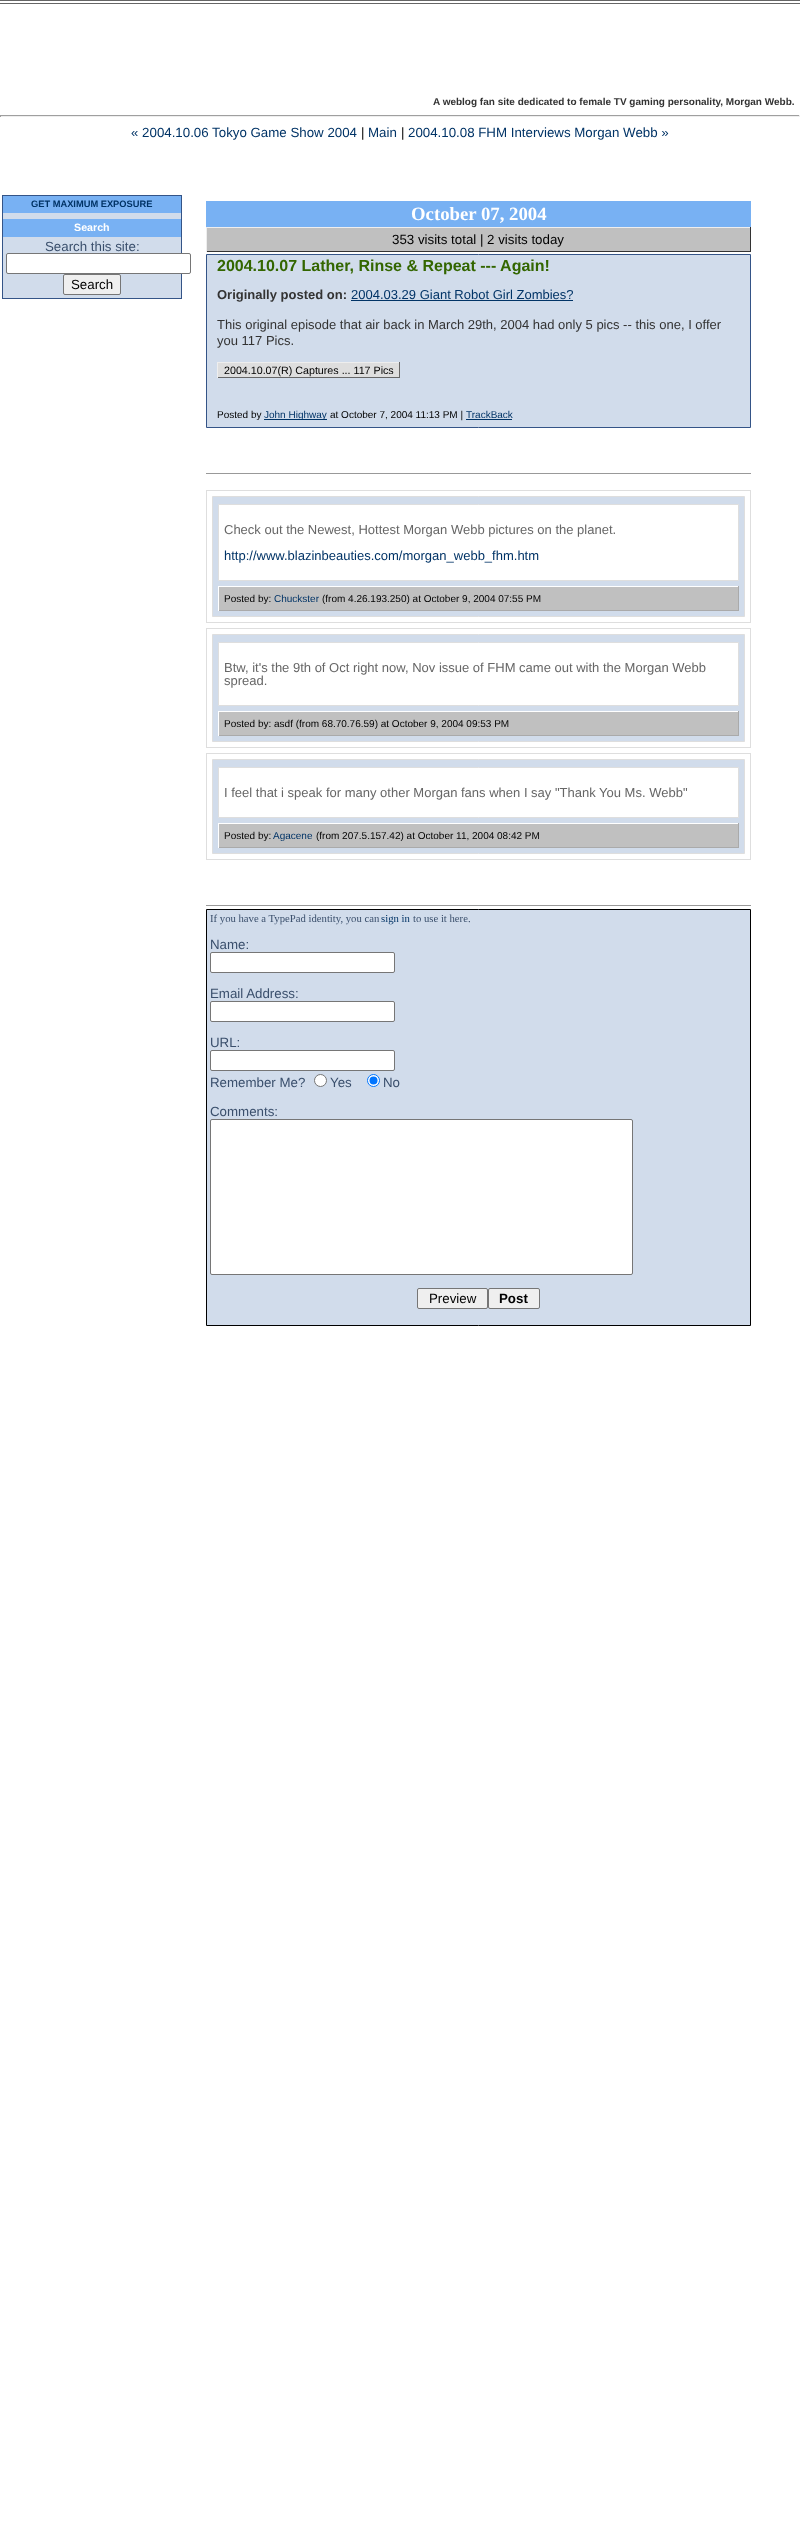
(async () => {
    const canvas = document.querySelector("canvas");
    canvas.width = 800;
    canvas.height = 2525;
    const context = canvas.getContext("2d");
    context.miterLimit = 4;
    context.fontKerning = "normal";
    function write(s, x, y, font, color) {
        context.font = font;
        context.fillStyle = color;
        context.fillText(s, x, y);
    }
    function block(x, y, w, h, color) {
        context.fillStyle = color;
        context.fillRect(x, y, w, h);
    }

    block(0, 0, 800, 2525, "rgb(255, 255, 255)");
    block(0, 0, 800, 1, "rgb(102, 102, 102)");
    block(0, 3, 800, 1, "rgb(102, 102, 102)");
    write("A weblog fan site dedicated to female TV gaming personality, Morgan Webb.", 433, 105, "bold 10px Liberation Sans", "rgb(51, 51, 51)");
    block(0, 115, 800, 1, "rgb(159, 159, 159)");
    block(799, 115, 1, 2, "rgb(238, 238, 238)");
    block(0, 116, 800, 1, "rgb(238, 238, 238)");
    block(0, 115, 1, 2, "rgb(159, 159, 159)");
    write("« 2004.10.06 Tokyo Game Show 2004", 131, 137, "13.3px Liberation Sans", "rgb(0, 51, 102)");
    write("|", 361, 137, "13.3px Liberation Sans", "rgb(0, 0, 0)");
    write("Main", 368, 137, "13.3px Liberation Sans", "rgb(0, 51, 102)");
    write("|", 401, 137, "13.3px Liberation Sans", "rgb(0, 0, 0)");
    write("2004.10.08 FHM Interviews Morgan Webb »", 408, 137, "13.3px Liberation Sans", "rgb(0, 51, 102)");
    context.strokeStyle = "rgb(52, 84, 135)";
    context.strokeRect(2.5, 195.5, 179, 103);
    block(3, 196, 178, 17, "rgb(120, 177, 243)");
    write("GET MAXIMUM EXPOSURE", 31, 207, "bold 9.3px Liberation Sans", "rgb(0, 51, 102)");
    block(3, 213, 178, 6, "rgb(209, 220, 235)");
    block(3, 219, 178, 18, "rgb(120, 177, 243)");
    write("Search", 74, 231, "bold 10.7px Liberation Sans", "rgb(255, 255, 255)");
    block(3, 237, 178, 61, "rgb(209, 220, 235)");
    write("Search this site:", 45, 251, "13.3px Liberation Sans", "rgb(58, 79, 108)");
    context.fillStyle = "rgb(255, 255, 255)";
    context.beginPath();
    context.roundRect(6.5, 253.5, 184, 20, 1.5);
    context.fill();
    context.strokeStyle = "rgb(118, 118, 118)";
    context.stroke();
    context.fillStyle = "rgb(239, 239, 239)";
    context.beginPath();
    context.roundRect(63.5, 274.5, 57, 20, 1.5);
    context.fill();
    context.stroke();
    write("Search", 71, 289, "13.3px Liberation Sans", "rgb(0, 0, 0)");
    block(206, 201, 545, 26, "rgb(120, 177, 243)");
    write("October 07, 2004", 411, 220, "bold 18.75px Liberation Serif", "rgb(255, 255, 255)");
    block(207, 228, 543, 23, "rgb(192, 192, 192)");
    block(206, 227, 545, 1, "rgb(238, 238, 238)");
    block(750, 227, 1, 25, "rgb(51, 51, 51)");
    block(206, 251, 545, 1, "rgb(51, 51, 51)");
    block(206, 227, 1, 25, "rgb(238, 238, 238)");
    write("353 visits total | 2 visits today", 392, 244, "13.3px Liberation Sans", "rgb(0, 0, 0)");
    context.fillStyle = "rgb(209, 220, 235)";
    context.beginPath();
    context.rect(206.5, 254.5, 544, 173);
    context.fill();
    context.strokeStyle = "rgb(52, 84, 135)";
    context.stroke();
    write("2004.10.07 Lather, Rinse & Repeat --- Again!", 217, 271, "bold 16px Liberation Sans", "rgb(51, 102, 0)");
    write("Originally posted on:", 217, 299, "bold 13px Liberation Sans", "rgb(51, 51, 51)");
    write("2004.03.29 Giant Robot Girl Zombies?", 351, 299, "13px Liberation Sans", "rgb(0, 51, 102)");
    block(351, 300, 222, 1, "rgb(0, 51, 102)");
    write("This original episode that air back in March 29th, 2004 had only 5 pics -- this one, I offer", 217, 329, "13px Liberation Sans", "rgb(51, 51, 51)");
    write("you 117 Pics.", 217, 345, "13px Liberation Sans", "rgb(51, 51, 51)");
    block(218, 363, 181, 14, "rgb(222, 222, 222)");
    block(217, 362, 183, 1, "rgb(238, 238, 238)");
    block(399, 362, 1, 16, "rgb(102, 102, 102)");
    block(217, 377, 183, 1, "rgb(102, 102, 102)");
    block(217, 362, 1, 16, "rgb(238, 238, 238)");
    write("2004.10.07(R) Captures ... 117 Pics", 224, 374, "10.7px Liberation Sans", "rgb(0, 0, 0)");
    write("Posted by", 217, 418, "10px Liberation Sans", "rgb(0, 0, 0)");
    block(264, 419, 63, 1, "rgb(0, 51, 102)");
    write("John Highway", 264, 418, "10px Liberation Sans", "rgb(0, 51, 102)");
    write("at October 7, 2004 11:13 PM |", 330, 418, "10px Liberation Sans", "rgb(0, 0, 0)");
    write("TrackBack", 466, 418, "10px Liberation Sans", "rgb(0, 51, 102)");
    block(466, 419, 46, 1, "rgb(0, 51, 102)");
    block(206, 473, 545, 1, "rgb(153, 153, 153)");
    context.strokeStyle = "rgb(222, 222, 222)";
    context.strokeRect(206.5, 490.5, 544, 132);
    context.fillStyle = "rgb(209, 220, 235)";
    context.beginPath();
    context.rect(212.5, 496.5, 532, 120);
    context.fill();
    context.stroke();
    context.fillStyle = "rgb(255, 255, 255)";
    context.beginPath();
    context.rect(218.5, 504.5, 520, 76);
    context.fill();
    context.stroke();
    write("Check out the Newest, Hottest Morgan Webb pictures on the planet.", 224, 534, "13px Liberation Sans", "rgb(102, 102, 102)");
    write("http://www.blazinbeauties.com/morgan_webb_fhm.htm", 224, 560, "13px Liberation Sans", "rgb(0, 51, 102)");
    block(219, 587, 519, 23, "rgb(192, 192, 192)");
    block(218, 586, 521, 1, "rgb(255, 255, 255)");
    block(738, 586, 1, 25, "rgb(170, 170, 170)");
    block(218, 610, 521, 1, "rgb(170, 170, 170)");
    block(218, 586, 1, 25, "rgb(255, 255, 255)");
    write("Posted by:", 224, 602, "10px Liberation Sans", "rgb(0, 0, 0)");
    write("Chuckster", 274, 602, "10px Liberation Sans", "rgb(0, 51, 102)");
    write("(from 4.26.193.250) at October 9, 2004 07:55 PM", 322, 602, "10px Liberation Sans", "rgb(0, 0, 0)");
    context.strokeRect(206.5, 628.5, 544, 119);
    context.fillStyle = "rgb(209, 220, 235)";
    context.beginPath();
    context.rect(212.5, 634.5, 532, 107);
    context.fill();
    context.stroke();
    context.fillStyle = "rgb(255, 255, 255)";
    context.beginPath();
    context.rect(218.5, 642.5, 520, 63);
    context.fill();
    context.stroke();
    write("Btw, it's the 9th of Oct right now, Nov issue of FHM came out with the Morgan Webb", 224, 672, "13px Liberation Sans", "rgb(102, 102, 102)");
    write("spread.", 224, 685, "13px Liberation Sans", "rgb(102, 102, 102)");
    block(219, 712, 519, 23, "rgb(192, 192, 192)");
    block(218, 711, 521, 1, "rgb(255, 255, 255)");
    block(738, 711, 1, 25, "rgb(170, 170, 170)");
    block(218, 735, 521, 1, "rgb(170, 170, 170)");
    block(218, 711, 1, 25, "rgb(255, 255, 255)");
    write("Posted by: asdf (from 68.70.76.59) at October 9, 2004 09:53 PM", 224, 727, "10px Liberation Sans", "rgb(0, 0, 0)");
    context.strokeRect(206.5, 753.5, 544, 106);
    context.fillStyle = "rgb(209, 220, 235)";
    context.beginPath();
    context.rect(212.5, 759.5, 532, 94);
    context.fill();
    context.stroke();
    context.fillStyle = "rgb(255, 255, 255)";
    context.beginPath();
    context.rect(218.5, 767.5, 520, 50);
    context.fill();
    context.stroke();
    write("I feel that i speak for many other Morgan fans when I say \"Thank You Ms. Webb\"", 224, 797, "13px Liberation Sans", "rgb(102, 102, 102)");
    block(219, 824, 519, 23, "rgb(192, 192, 192)");
    block(218, 823, 521, 1, "rgb(255, 255, 255)");
    block(738, 823, 1, 25, "rgb(170, 170, 170)");
    block(218, 847, 521, 1, "rgb(170, 170, 170)");
    block(218, 823, 1, 25, "rgb(255, 255, 255)");
    write("Posted by:", 224, 839, "10px Liberation Sans", "rgb(0, 0, 0)");
    write("Agacene", 273, 839, "10px Liberation Sans", "rgb(0, 51, 102)");
    write("(from 207.5.157.42) at October 11, 2004 08:42 PM", 316, 839, "10px Liberation Sans", "rgb(0, 0, 0)");
    block(206, 905, 545, 1, "rgb(153, 153, 153)");
    context.fillStyle = "rgb(209, 220, 235)";
    context.beginPath();
    context.rect(206.5, 909.5, 544, 416);
    context.fill();
    context.strokeStyle = "rgb(0, 0, 0)";
    context.stroke();
    write("If you have a TypePad identity, you can", 210, 922, "10.7px Liberation Serif", "rgb(58, 79, 108)");
    write("sign in", 381, 922, "10.7px Liberation Serif", "rgb(0, 51, 102)");
    write("to use it here.", 413, 922, "10.7px Liberation Serif", "rgb(58, 79, 108)");
    write("Name:", 210, 949, "13.3px Liberation Sans", "rgb(58, 79, 108)");
    context.fillStyle = "rgb(255, 255, 255)";
    context.beginPath();
    context.roundRect(210.5, 952.5, 184, 20, 1.5);
    context.fill();
    context.strokeStyle = "rgb(118, 118, 118)";
    context.stroke();
    write("Email Address:", 210, 998, "13.3px Liberation Sans", "rgb(58, 79, 108)");
    context.fillStyle = "rgb(255, 255, 255)";
    context.beginPath();
    context.roundRect(210.5, 1001.5, 184, 20, 1.5);
    context.fill();
    context.stroke();
    write("URL:", 210, 1047, "13.3px Liberation Sans", "rgb(58, 79, 108)");
    context.fillStyle = "rgb(255, 255, 255)";
    context.beginPath();
    context.roundRect(210.5, 1050.5, 184, 20, 1.5);
    context.fill();
    context.stroke();
    write("Remember Me?", 210, 1087, "13.3px Liberation Sans", "rgb(58, 79, 108)");
    context.fillStyle = "rgb(255, 255, 255)";
    context.beginPath();
    context.arc(320.5, 1080.5, 6, 0, Math.PI * 2);
    context.fill();
    context.stroke();
    write("Yes", 330, 1087, "13.3px Liberation Sans", "rgb(58, 79, 108)");
    context.fillStyle = "rgb(255, 255, 255)";
    context.beginPath();
    context.arc(373.5, 1080.5, 6, 0, Math.PI * 2);
    context.fill();
    context.strokeStyle = "rgb(0, 117, 255)";
    context.stroke();
    context.fillStyle = "rgb(0, 117, 255)";
    context.beginPath();
    context.arc(373.5, 1080.5, 4, 0, Math.PI * 2);
    context.fill();
    write("No", 383, 1087, "13.3px Liberation Sans", "rgb(58, 79, 108)");
    write("Comments:", 210, 1116, "13.3px Liberation Sans", "rgb(58, 79, 108)");
    context.fillStyle = "rgb(255, 255, 255)";
    context.beginPath();
    context.roundRect(210.5, 1119.5, 422, 155, 1.5);
    context.fill();
    context.strokeStyle = "rgb(118, 118, 118)";
    context.stroke();
    context.fillStyle = "rgb(239, 239, 239)";
    context.beginPath();
    context.roundRect(417.5, 1288.5, 70, 20, 1.5);
    context.fill();
    context.stroke();
    write("Preview", 429, 1303, "13.3px Liberation Sans", "rgb(0, 0, 0)");
    context.fillStyle = "rgb(239, 239, 239)";
    context.beginPath();
    context.roundRect(488.5, 1288.5, 51, 20, 1.5);
    context.fill();
    context.stroke();
    write("Post", 499, 1303, "bold 13.3px Liberation Sans", "rgb(0, 0, 0)");
})();
